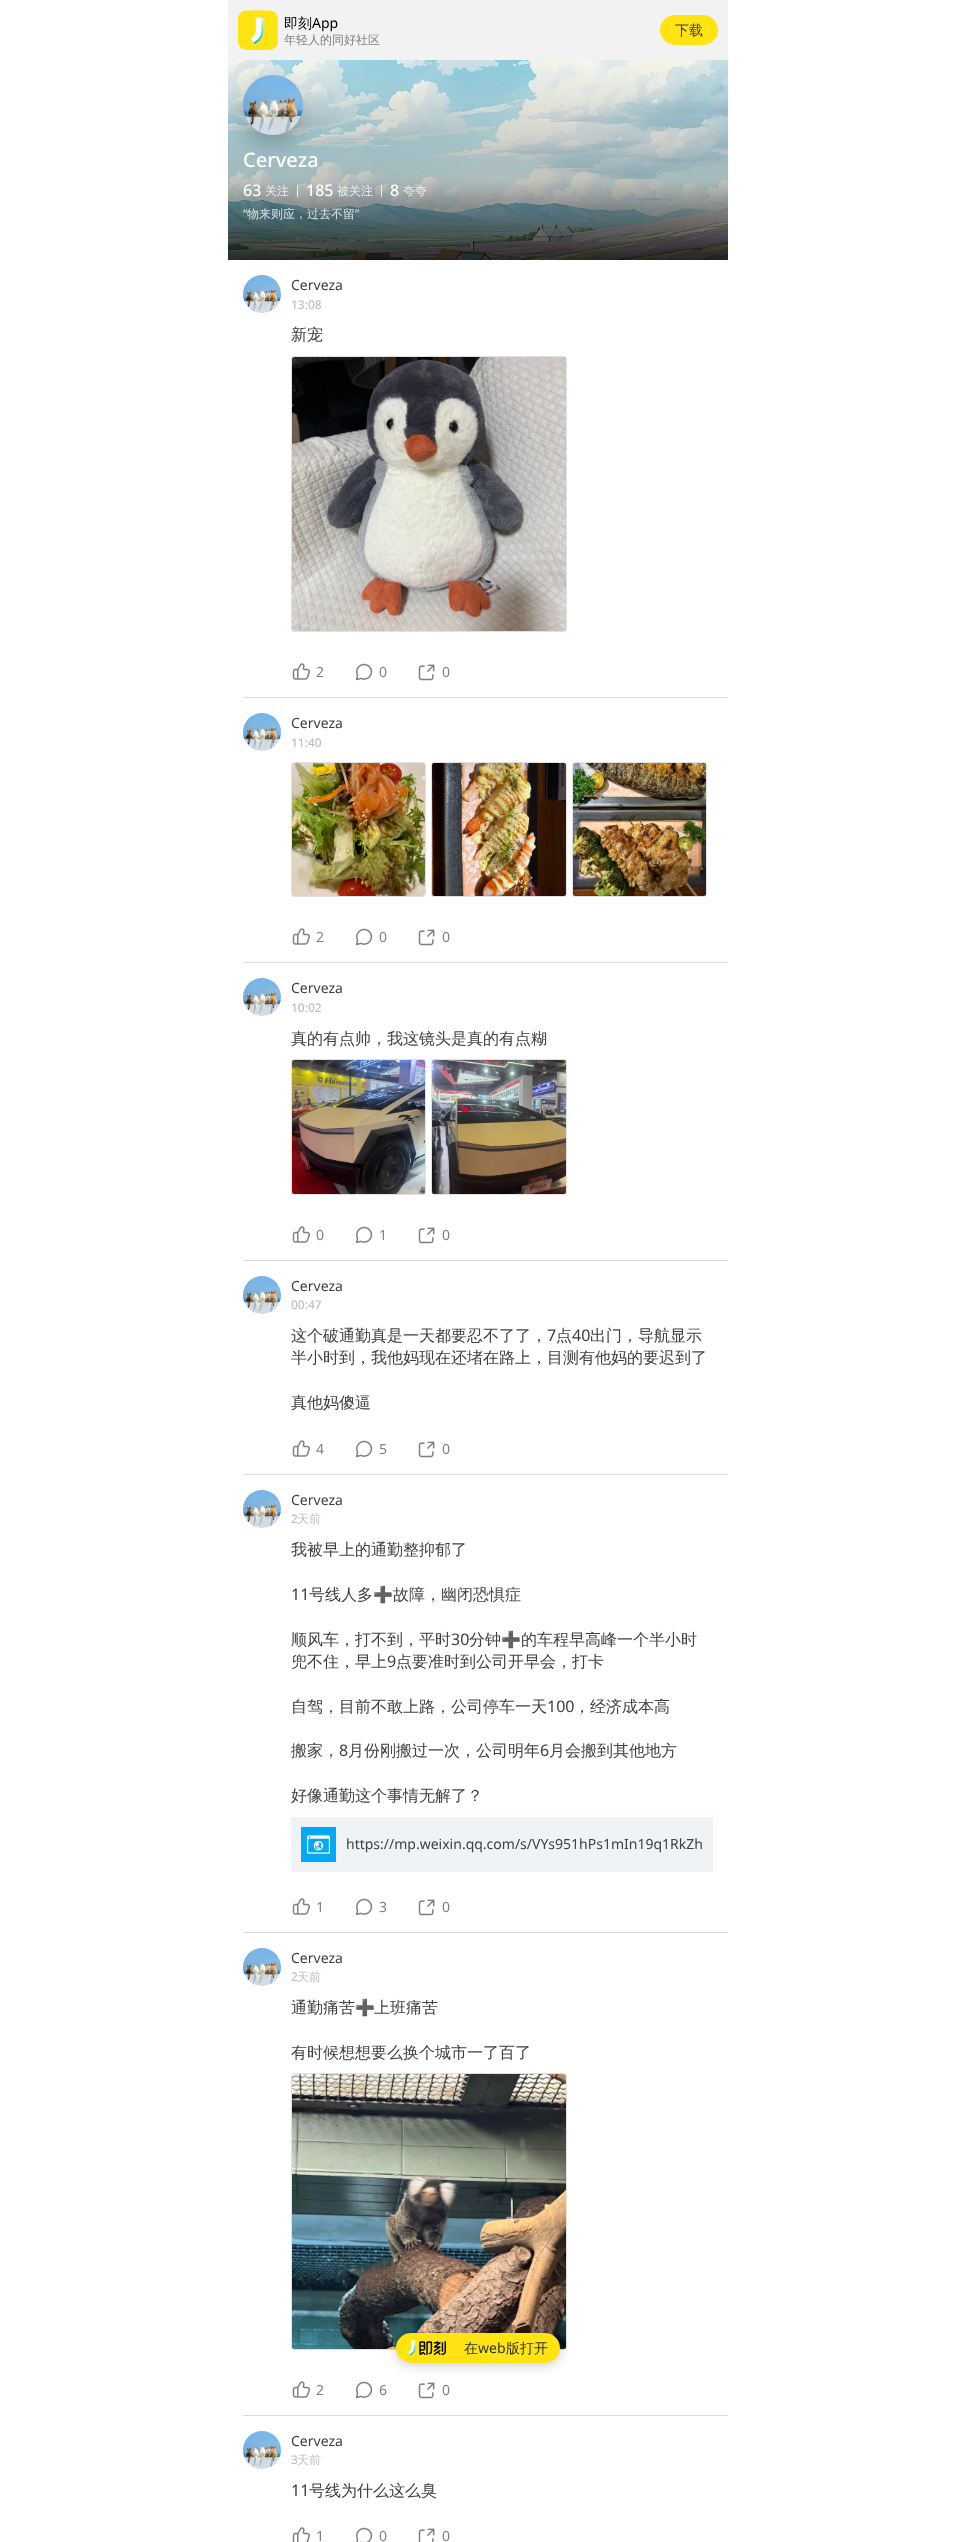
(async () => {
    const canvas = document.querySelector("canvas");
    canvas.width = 955;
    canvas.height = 2542;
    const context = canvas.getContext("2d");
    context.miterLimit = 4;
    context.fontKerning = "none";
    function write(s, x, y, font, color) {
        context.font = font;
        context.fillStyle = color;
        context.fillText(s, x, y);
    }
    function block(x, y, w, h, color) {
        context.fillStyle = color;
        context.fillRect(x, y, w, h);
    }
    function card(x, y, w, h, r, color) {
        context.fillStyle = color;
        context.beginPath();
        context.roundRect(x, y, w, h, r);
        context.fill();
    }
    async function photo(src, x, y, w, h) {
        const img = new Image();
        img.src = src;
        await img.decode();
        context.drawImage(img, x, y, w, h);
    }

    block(0, 0, 955, 2542, "rgb(255, 255, 255)");
    block(228, 0, 500, 60, "rgb(242, 242, 242)");
    await photo("media/1.png", 238, 10, 40, 40);
    write("即刻", 284, 28, "500 14px WenQuanYi Zen Hei", "rgb(0, 0, 0)");
    write("App", 312, 28, "14px Noto Sans", "rgb(0, 0, 0)");
    write("年轻人的同好社区", 284, 44, "500 12px WenQuanYi Zen Hei", "rgb(128, 128, 128)");
    card(660, 15, 58, 30, 15, "rgb(255, 228, 17)");
    write("下载", 675, 35, "500 14px WenQuanYi Zen Hei", "rgb(64, 64, 64)");
    await photo("media/2.png", 228, 60, 500, 200);
    context.fillStyle = "rgba(0, 0, 0, 0.2)";
    context.filter = "blur(10px)";
    context.beginPath();
    context.roundRect(243, 85, 60, 60, 30);
    context.fill();
    context.filter = "none";
    await photo("media/3.png", 243, 75, 60, 60);
    write("Cerveza", 243, 167, "500 20px Noto Sans", "rgb(255, 255, 255)");
    write("63", 243, 196, "500 16px Noto Sans", "rgb(255, 255, 255)");
    write("关注", 265, 195, "500 12px WenQuanYi Zen Hei", "rgb(236, 238, 238)");
    block(297, 185, 1, 12, "rgba(255, 255, 255, 0.8)");
    write("185", 306, 196, "500 16px Noto Sans", "rgb(255, 255, 255)");
    write("被关注", 337, 195, "500 12px WenQuanYi Zen Hei", "rgb(236, 238, 238)");
    block(381, 185, 1, 12, "rgba(255, 255, 255, 0.8)");
    write("8", 390, 196, "500 16px Noto Sans", "rgb(255, 255, 255)");
    write("夸夸", 403, 195, "500 12px WenQuanYi Zen Hei", "rgb(236, 238, 238)");
    write("“", 243, 218, "12px Noto Sans", "rgb(221, 227, 228)");
    write("物来则应，过去不留", 247, 218, "500 12px WenQuanYi Zen Hei", "rgb(221, 227, 228)");
    write("”", 355, 218, "12px Noto Sans", "rgb(221, 227, 228)");
    await photo("media/4.png", 243, 275, 38, 38);
    write("Cerveza", 291, 290, "14px Noto Sans", "rgb(64, 64, 64)");
    write("13:08", 291, 309, "500 12px Noto Sans", "rgb(191, 191, 191)");
    block(243, 697, 485, 1, "rgb(219, 219, 219)");
    write("新宠", 291, 340, "500 16px WenQuanYi Zen Hei", "rgb(64, 64, 64)");
    context.beginPath();
    context.roundRect(291.5, 356.5, 275, 275, 2.5);
    context.strokeStyle = "rgb(225, 225, 225)";
    context.stroke();
    await photo("media/5.png", 292, 357, 274, 274);
    await photo("media/6.png", 292, 663, 18, 17);
    write("2", 316, 677, "14px Noto Sans", "rgb(128, 128, 128)");
    await photo("media/7.png", 355, 663, 18, 18);
    write("0", 379, 677, "14px Noto Sans", "rgb(128, 128, 128)");
    await photo("media/8.png", 418, 664, 17, 17);
    write("0", 442, 677, "14px Noto Sans", "rgb(128, 128, 128)");
    await photo("media/4.png", 243, 713, 38, 38);
    write("Cerveza", 291, 728, "14px Noto Sans", "rgb(64, 64, 64)");
    write("11:40", 291, 747, "500 12px Noto Sans", "rgb(191, 191, 191)");
    block(243, 962, 485, 1, "rgb(219, 219, 219)");
    context.beginPath();
    context.roundRect(291.5, 762.5, 134, 134, 2.5);
    context.stroke();
    await photo("media/9.png", 292, 763, 133, 133);
    context.beginPath();
    context.roundRect(431.5, 762.5, 135, 134, 2.5);
    context.stroke();
    await photo("media/10.png", 432, 763, 134, 133);
    context.beginPath();
    context.roundRect(572.5, 762.5, 134, 134, 2.5);
    context.stroke();
    await photo("media/11.png", 573, 763, 133, 133);
    await photo("media/6.png", 292, 928, 18, 17);
    write("2", 316, 942, "14px Noto Sans", "rgb(128, 128, 128)");
    await photo("media/7.png", 355, 928, 18, 18);
    write("0", 379, 942, "14px Noto Sans", "rgb(128, 128, 128)");
    await photo("media/8.png", 418, 929, 17, 17);
    write("0", 442, 942, "14px Noto Sans", "rgb(128, 128, 128)");
    await photo("media/4.png", 243, 978, 38, 38);
    write("Cerveza", 291, 993, "14px Noto Sans", "rgb(64, 64, 64)");
    write("10:02", 291, 1012, "500 12px Noto Sans", "rgb(191, 191, 191)");
    block(243, 1260, 485, 1, "rgb(219, 219, 219)");
    write("真的有点帅，我这镜头是真的有点糊", 291, 1044, "500 16px WenQuanYi Zen Hei", "rgb(64, 64, 64)");
    context.beginPath();
    context.roundRect(291.5, 1059.5, 134, 135, 2.5);
    context.stroke();
    await photo("media/12.png", 292, 1060, 133, 134);
    context.beginPath();
    context.roundRect(431.5, 1059.5, 135, 135, 2.5);
    context.stroke();
    await photo("media/13.png", 432, 1060, 134, 134);
    await photo("media/6.png", 292, 1226, 18, 17);
    write("0", 316, 1240, "14px Noto Sans", "rgb(128, 128, 128)");
    await photo("media/7.png", 355, 1226, 18, 18);
    write("1", 379, 1240, "14px Noto Sans", "rgb(128, 128, 128)");
    await photo("media/8.png", 418, 1227, 17, 17);
    write("0", 442, 1240, "14px Noto Sans", "rgb(128, 128, 128)");
    await photo("media/4.png", 243, 1276, 38, 38);
    write("Cerveza", 291, 1291, "14px Noto Sans", "rgb(64, 64, 64)");
    write("00:47", 291, 1309, "500 12px Noto Sans", "rgb(191, 191, 191)");
    block(243, 1474, 485, 1, "rgb(219, 219, 219)");
    write("这个破通勤真是一天都要忍不了了，", 291, 1341, "500 16px WenQuanYi Zen Hei", "rgb(64, 64, 64)");
    write("7", 547, 1341, "16px Noto Sans", "rgb(64, 64, 64)");
    write("点", 556, 1341, "500 16px WenQuanYi Zen Hei", "rgb(64, 64, 64)");
    write("40", 572, 1341, "16px Noto Sans", "rgb(64, 64, 64)");
    write("出门，导航显示", 590, 1341, "500 16px WenQuanYi Zen Hei", "rgb(64, 64, 64)");
    write("半小时到，我他妈现在还堵在路上，目测有他妈的要迟到了", 291, 1363, "500 16px WenQuanYi Zen Hei", "rgb(64, 64, 64)");
    write("真他妈傻逼", 291, 1408, "500 16px WenQuanYi Zen Hei", "rgb(64, 64, 64)");
    await photo("media/6.png", 292, 1440, 18, 17);
    write("4", 316, 1454, "14px Noto Sans", "rgb(128, 128, 128)");
    await photo("media/7.png", 355, 1440, 18, 18);
    write("5", 379, 1454, "14px Noto Sans", "rgb(128, 128, 128)");
    await photo("media/8.png", 418, 1441, 17, 17);
    write("0", 442, 1454, "14px Noto Sans", "rgb(128, 128, 128)");
    await photo("media/14.png", 243, 1490, 38, 38);
    write("Cerveza", 291, 1505, "14px Noto Sans", "rgb(64, 64, 64)");
    write("2", 291, 1523, "500 12px Noto Sans", "rgb(191, 191, 191)");
    write("天前", 297, 1523, "500 12px WenQuanYi Zen Hei", "rgb(191, 191, 191)");
    block(243, 1932, 485, 1, "rgb(219, 219, 219)");
    write("我被早上的通勤整抑郁了", 291, 1555, "500 16px WenQuanYi Zen Hei", "rgb(64, 64, 64)");
    write("11", 291, 1600, "16px Noto Sans", "rgb(64, 64, 64)");
    write("号线人多", 309, 1600, "500 16px WenQuanYi Zen Hei", "rgb(64, 64, 64)");
    write("➕", 373, 1600, "16px Noto Color Emoji", "rgb(64, 64, 64)");
    write("故障，幽闭恐惧症", 393, 1600, "500 16px WenQuanYi Zen Hei", "rgb(64, 64, 64)");
    write("顺风车，打不到，平时", 291, 1645, "500 16px WenQuanYi Zen Hei", "rgb(64, 64, 64)");
    write("30", 451, 1645, "16px Noto Sans", "rgb(64, 64, 64)");
    write("分钟", 469, 1645, "500 16px WenQuanYi Zen Hei", "rgb(64, 64, 64)");
    write("➕", 501, 1645, "16px Noto Color Emoji", "rgb(64, 64, 64)");
    write("的车程早高峰一个半小时", 521, 1645, "500 16px WenQuanYi Zen Hei", "rgb(64, 64, 64)");
    write("兜不住，早上", 291, 1667, "500 16px WenQuanYi Zen Hei", "rgb(64, 64, 64)");
    write("9", 387, 1667, "16px Noto Sans", "rgb(64, 64, 64)");
    write("点要准时到公司开早会，打卡", 396, 1667, "500 16px WenQuanYi Zen Hei", "rgb(64, 64, 64)");
    write("自驾，目前不敢上路，公司停车一天", 291, 1712, "500 16px WenQuanYi Zen Hei", "rgb(64, 64, 64)");
    write("100", 547, 1712, "16px Noto Sans", "rgb(64, 64, 64)");
    write("，经济成本高", 574, 1712, "500 16px WenQuanYi Zen Hei", "rgb(64, 64, 64)");
    write("搬家，", 291, 1756, "500 16px WenQuanYi Zen Hei", "rgb(64, 64, 64)");
    write("8", 339, 1756, "16px Noto Sans", "rgb(64, 64, 64)");
    write("月份刚搬过一次，公司明年", 348, 1756, "500 16px WenQuanYi Zen Hei", "rgb(64, 64, 64)");
    write("6", 540, 1756, "16px Noto Sans", "rgb(64, 64, 64)");
    write("月会搬到其他地方", 549, 1756, "500 16px WenQuanYi Zen Hei", "rgb(64, 64, 64)");
    write("好像通勤这个事情无解了？", 291, 1801, "500 16px WenQuanYi Zen Hei", "rgb(64, 64, 64)");
    block(291, 1817, 422, 55, "rgb(240, 243, 245)");
    await photo("media/15.png", 301, 1827, 35, 35);
    write("https://mp.weixin.qq.com/s/VYs951hPs1mIn19q1RkZh", 346, 1849, "14px Noto Sans", "rgb(64, 64, 64)");
    await photo("media/6.png", 292, 1898, 18, 17);
    write("1", 316, 1912, "14px Noto Sans", "rgb(128, 128, 128)");
    await photo("media/7.png", 355, 1898, 18, 18);
    write("3", 379, 1912, "14px Noto Sans", "rgb(128, 128, 128)");
    await photo("media/8.png", 418, 1899, 17, 17);
    write("0", 442, 1912, "14px Noto Sans", "rgb(128, 128, 128)");
    await photo("media/4.png", 243, 1948, 38, 38);
    write("Cerveza", 291, 1963, "14px Noto Sans", "rgb(64, 64, 64)");
    write("2", 291, 1981, "500 12px Noto Sans", "rgb(191, 191, 191)");
    write("天前", 297, 1981, "500 12px WenQuanYi Zen Hei", "rgb(191, 191, 191)");
    block(243, 2415, 485, 1, "rgb(219, 219, 219)");
    write("通勤痛苦", 291, 2013, "500 16px WenQuanYi Zen Hei", "rgb(64, 64, 64)");
    write("➕", 355, 2013, "16px Noto Color Emoji", "rgb(64, 64, 64)");
    write("上班痛苦", 374, 2013, "500 16px WenQuanYi Zen Hei", "rgb(64, 64, 64)");
    write("有时候想想要么换个城市一了百了", 291, 2058, "500 16px WenQuanYi Zen Hei", "rgb(64, 64, 64)");
    context.beginPath();
    context.roundRect(291.5, 2073.5, 275, 276, 2.5);
    context.stroke();
    await photo("media/16.png", 292, 2074, 274, 275);
    await photo("media/6.png", 292, 2381, 18, 17);
    write("2", 316, 2395, "14px Noto Sans", "rgb(128, 128, 128)");
    await photo("media/7.png", 355, 2381, 18, 18);
    write("6", 379, 2395, "14px Noto Sans", "rgb(128, 128, 128)");
    await photo("media/8.png", 418, 2382, 17, 17);
    write("0", 442, 2395, "14px Noto Sans", "rgb(128, 128, 128)");
    await photo("media/4.png", 243, 2431, 38, 38);
    write("Cerveza", 291, 2446, "14px Noto Sans", "rgb(64, 64, 64)");
    write("3", 291, 2464, "500 12px Noto Sans", "rgb(191, 191, 191)");
    write("天前", 297, 2464, "500 12px WenQuanYi Zen Hei", "rgb(191, 191, 191)");
    write("11", 291, 2496, "16px Noto Sans", "rgb(64, 64, 64)");
    write("号线为什么这么臭", 309, 2496, "500 16px WenQuanYi Zen Hei", "rgb(64, 64, 64)");
    await photo("media/17.png", 292, 2527, 18, 15);
    write("1", 316, 2541, "14px Noto Sans", "rgb(128, 128, 128)");
    await photo("media/18.png", 356, 2527, 17, 15);
    write("0", 379, 2541, "14px Noto Sans", "rgb(128, 128, 128)");
    await photo("media/19.png", 418, 2528, 17, 14);
    write("0", 442, 2541, "14px Noto Sans", "rgb(128, 128, 128)");
    context.fillStyle = "rgba(0, 0, 0, 0.2)";
    context.filter = "blur(6px)";
    context.beginPath();
    context.roundRect(396, 2335, 164, 30, 15);
    context.fill();
    context.filter = "none";
    card(396, 2333, 164, 30, 15, "rgb(255, 228, 17)");
    await photo("media/20.png", 408, 2340, 38, 16);
    write("在", 464, 2353, "500 14px WenQuanYi Zen Hei", "rgb(51, 51, 51)");
    write("web", 478, 2353, "14px Noto Sans", "rgb(51, 51, 51)");
    write("版打开", 506, 2353, "500 14px WenQuanYi Zen Hei", "rgb(51, 51, 51)");
})();
